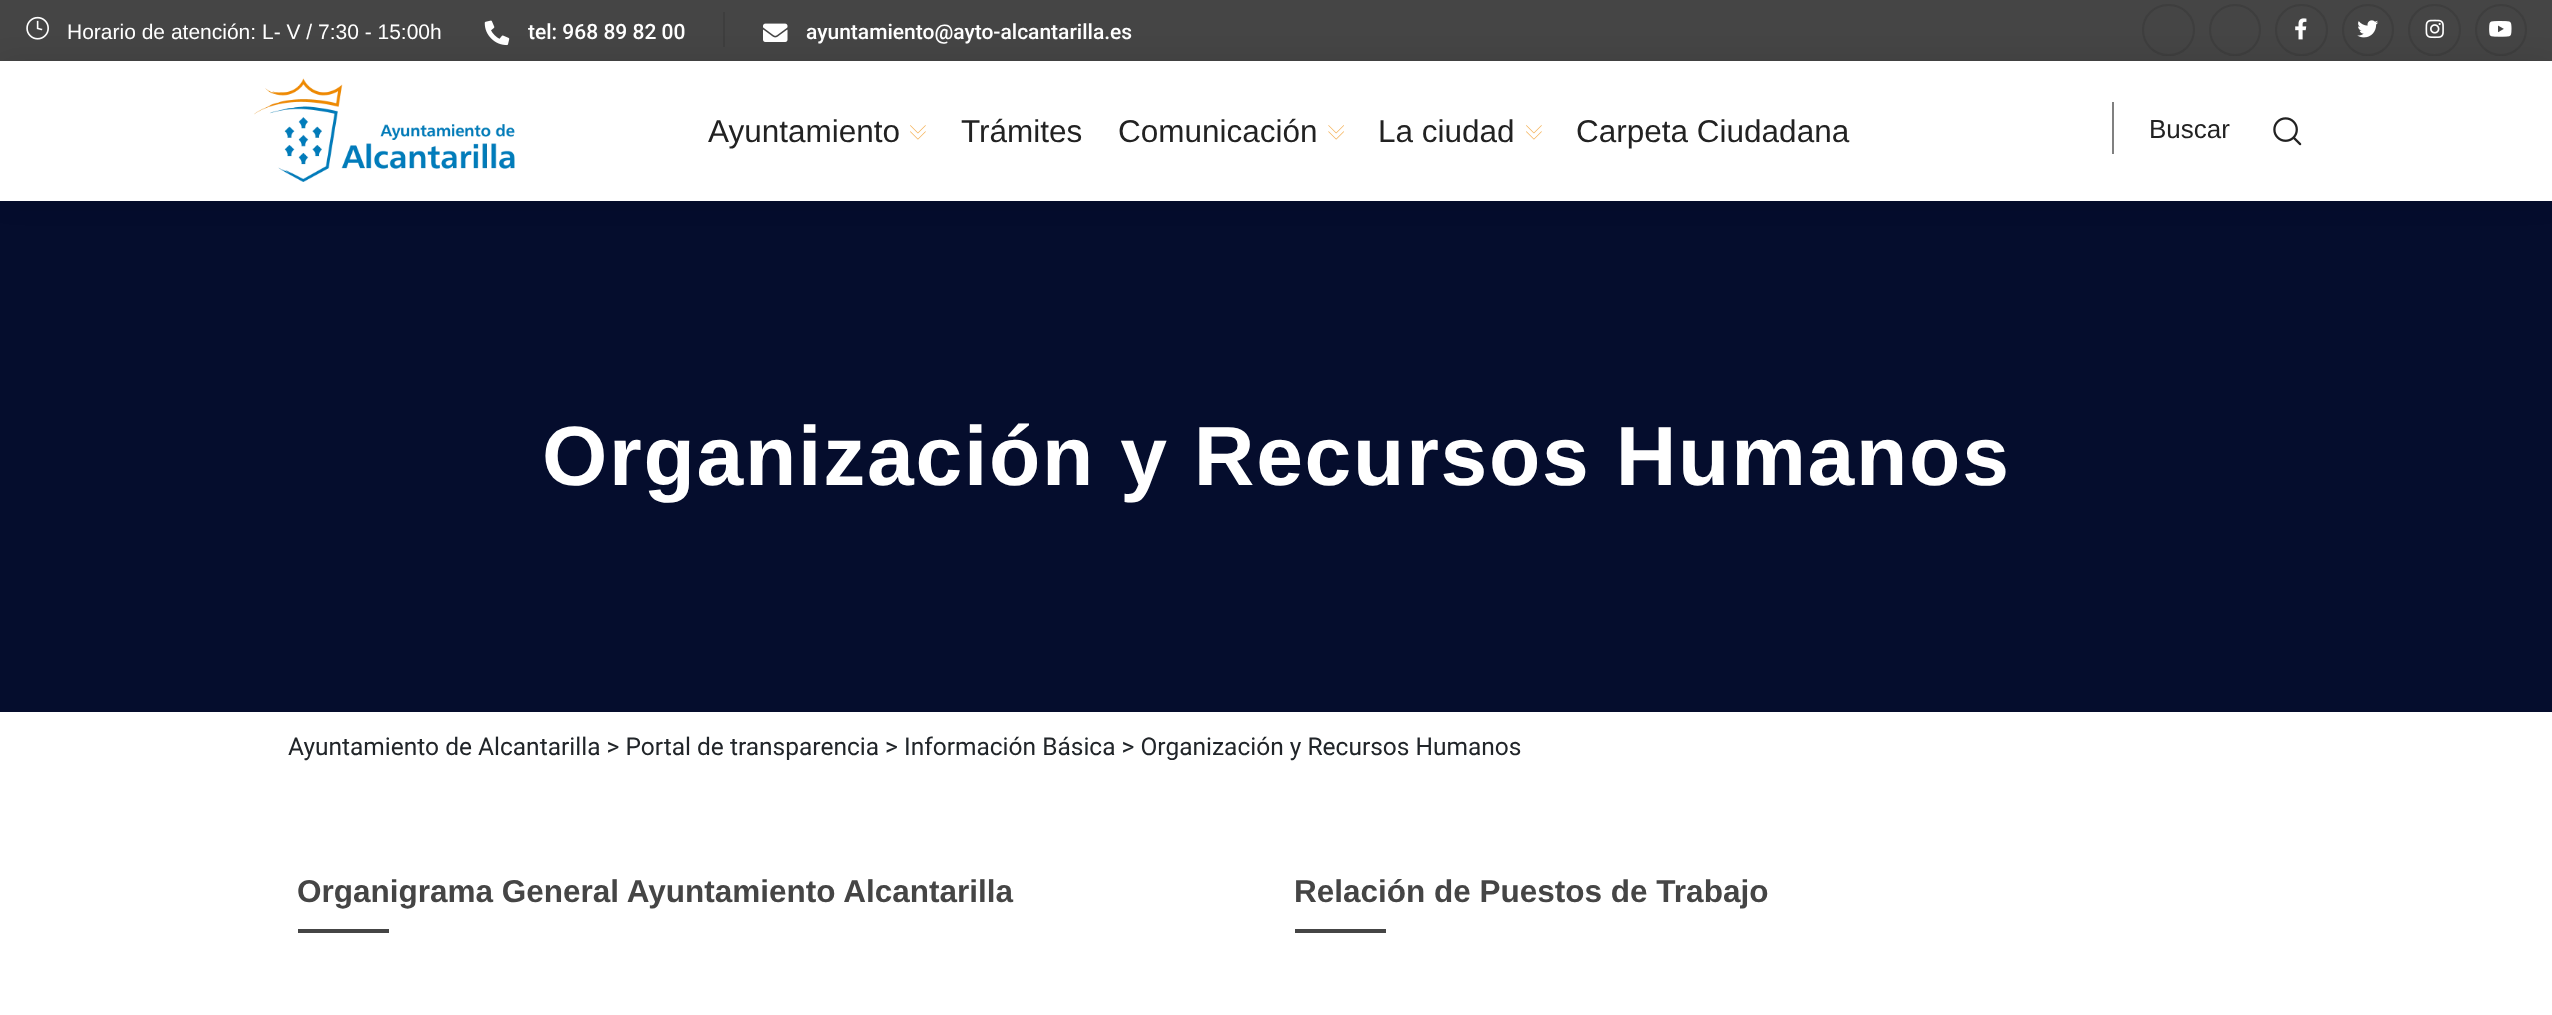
(async () => {
    const canvas = document.querySelector("canvas");
    canvas.width = 2552;
    canvas.height = 1015;
    const context = canvas.getContext("2d");
    context.miterLimit = 4;
    context.fontKerning = "normal";
    function write(s, x, y, font, color) {
        context.font = font;
        context.fillStyle = color;
        context.fillText(s, x, y);
    }
    function block(x, y, w, h, color) {
        context.fillStyle = color;
        context.fillRect(x, y, w, h);
    }
    async function photo(src, x, y, w, h) {
        const img = new Image();
        img.src = src;
        await img.decode();
        context.drawImage(img, x, y, w, h);
    }

    block(0, 0, 2552, 1015, "rgb(255, 255, 255)");
    block(0, 0, 2552, 61, "rgb(69, 69, 69)");
    await photo("media/1.png", 26, 16, 23, 24);
    write("Horario de atención: L- V / 7:30 - 15:00h", 67, 39, "21px Liberation Sans", "rgb(255, 255, 255)");
    await photo("media/2.png", 484, 20, 26, 26);
    write("tel: 968 89 82 00", 528, 39, "500 21px Roboto", "rgb(255, 255, 255)");
    block(723, 12, 2, 35, "rgb(62, 62, 62)");
    await photo("media/3.png", 763, 23, 25, 19);
    write("ayuntamiento@ayto-alcantarilla.es", 806, 39, "500 21px Roboto", "rgb(255, 255, 255)");
    context.beginPath();
    context.roundRect(2143, 5, 51, 50, 25);
    context.strokeStyle = "rgb(62, 62, 62)";
    context.lineWidth = 2;
    context.stroke();
    context.beginPath();
    context.arc(2235, 30, 25, 0, Math.PI * 2);
    context.stroke();
    context.beginPath();
    context.roundRect(2276, 5, 51, 50, 25);
    context.stroke();
    await photo("media/4.png", 2295, 18, 12, 22);
    context.beginPath();
    context.arc(2368, 30, 25, 0, Math.PI * 2);
    context.stroke();
    await photo("media/5.png", 2357, 20, 22, 18);
    context.beginPath();
    context.roundRect(2409, 5, 51, 50, 25);
    context.stroke();
    await photo("media/6.png", 2425, 19, 19, 20);
    context.beginPath();
    context.arc(2501, 30, 25, 0, Math.PI * 2);
    context.stroke();
    await photo("media/7.png", 2489, 21, 23, 16);
    block(0, 201, 2552, 511, "rgb(5, 13, 45)");
    context.fillStyle = "rgba(0, 0, 0, 0.1)";
    context.filter = "blur(13px)";
    context.beginPath();
    context.rect(0, 61, 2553, 140);
    context.fill();
    context.filter = "none";
    block(0, 61, 2552, 140, "rgb(255, 255, 255)");
    await photo("media/8.png", 254, 78, 261, 104);
    write("Ayuntamiento", 708, 142, "31.5px Liberation Sans", "rgb(34, 34, 34)");
    await photo("media/9.png", 910, 125, 16, 15);
    write("Trámites", 961, 142, "31.5px Liberation Sans", "rgb(34, 34, 34)");
    write("Comunicación", 1118, 142, "31.5px Liberation Sans", "rgb(34, 34, 34)");
    await photo("media/10.png", 1328, 125, 16, 15);
    write("La ciudad", 1378, 142, "31.5px Liberation Sans", "rgb(34, 34, 34)");
    await photo("media/9.png", 1526, 125, 16, 15);
    write("Carpeta Ciudadana", 1576, 142, "31.5px Liberation Sans", "rgb(34, 34, 34)");
    block(2112, 102, 2, 52, "rgb(128, 128, 128)");
    write("Buscar", 2149, 138, "26px Liberation Sans", "rgb(34, 34, 34)");
    await photo("media/11.png", 2273, 117, 29, 29);
    context.letterSpacing = "1.75px";
    write("Organización y Recursos Humanos", 542, 485, "bold 84px Liberation Sans", "rgb(255, 255, 255)");
    context.letterSpacing = "0px";
    write("Ayuntamiento de Alcantarilla > Portal de transparencia > Información Básica > Organización y Recursos Humanos", 288, 755, "24.5px Roboto", "rgb(33, 37, 41)");
    write("Organigrama General Ayuntamiento Alcantarilla", 297, 902, "bold 31.5px Liberation Sans", "rgb(69, 69, 69)");
    block(298, 929, 91, 4, "rgb(69, 69, 69)");
    write("Relación de Puestos de Trabajo", 1294, 902, "bold 31.5px Liberation Sans", "rgb(69, 69, 69)");
    block(1295, 929, 91, 4, "rgb(69, 69, 69)");
})();
